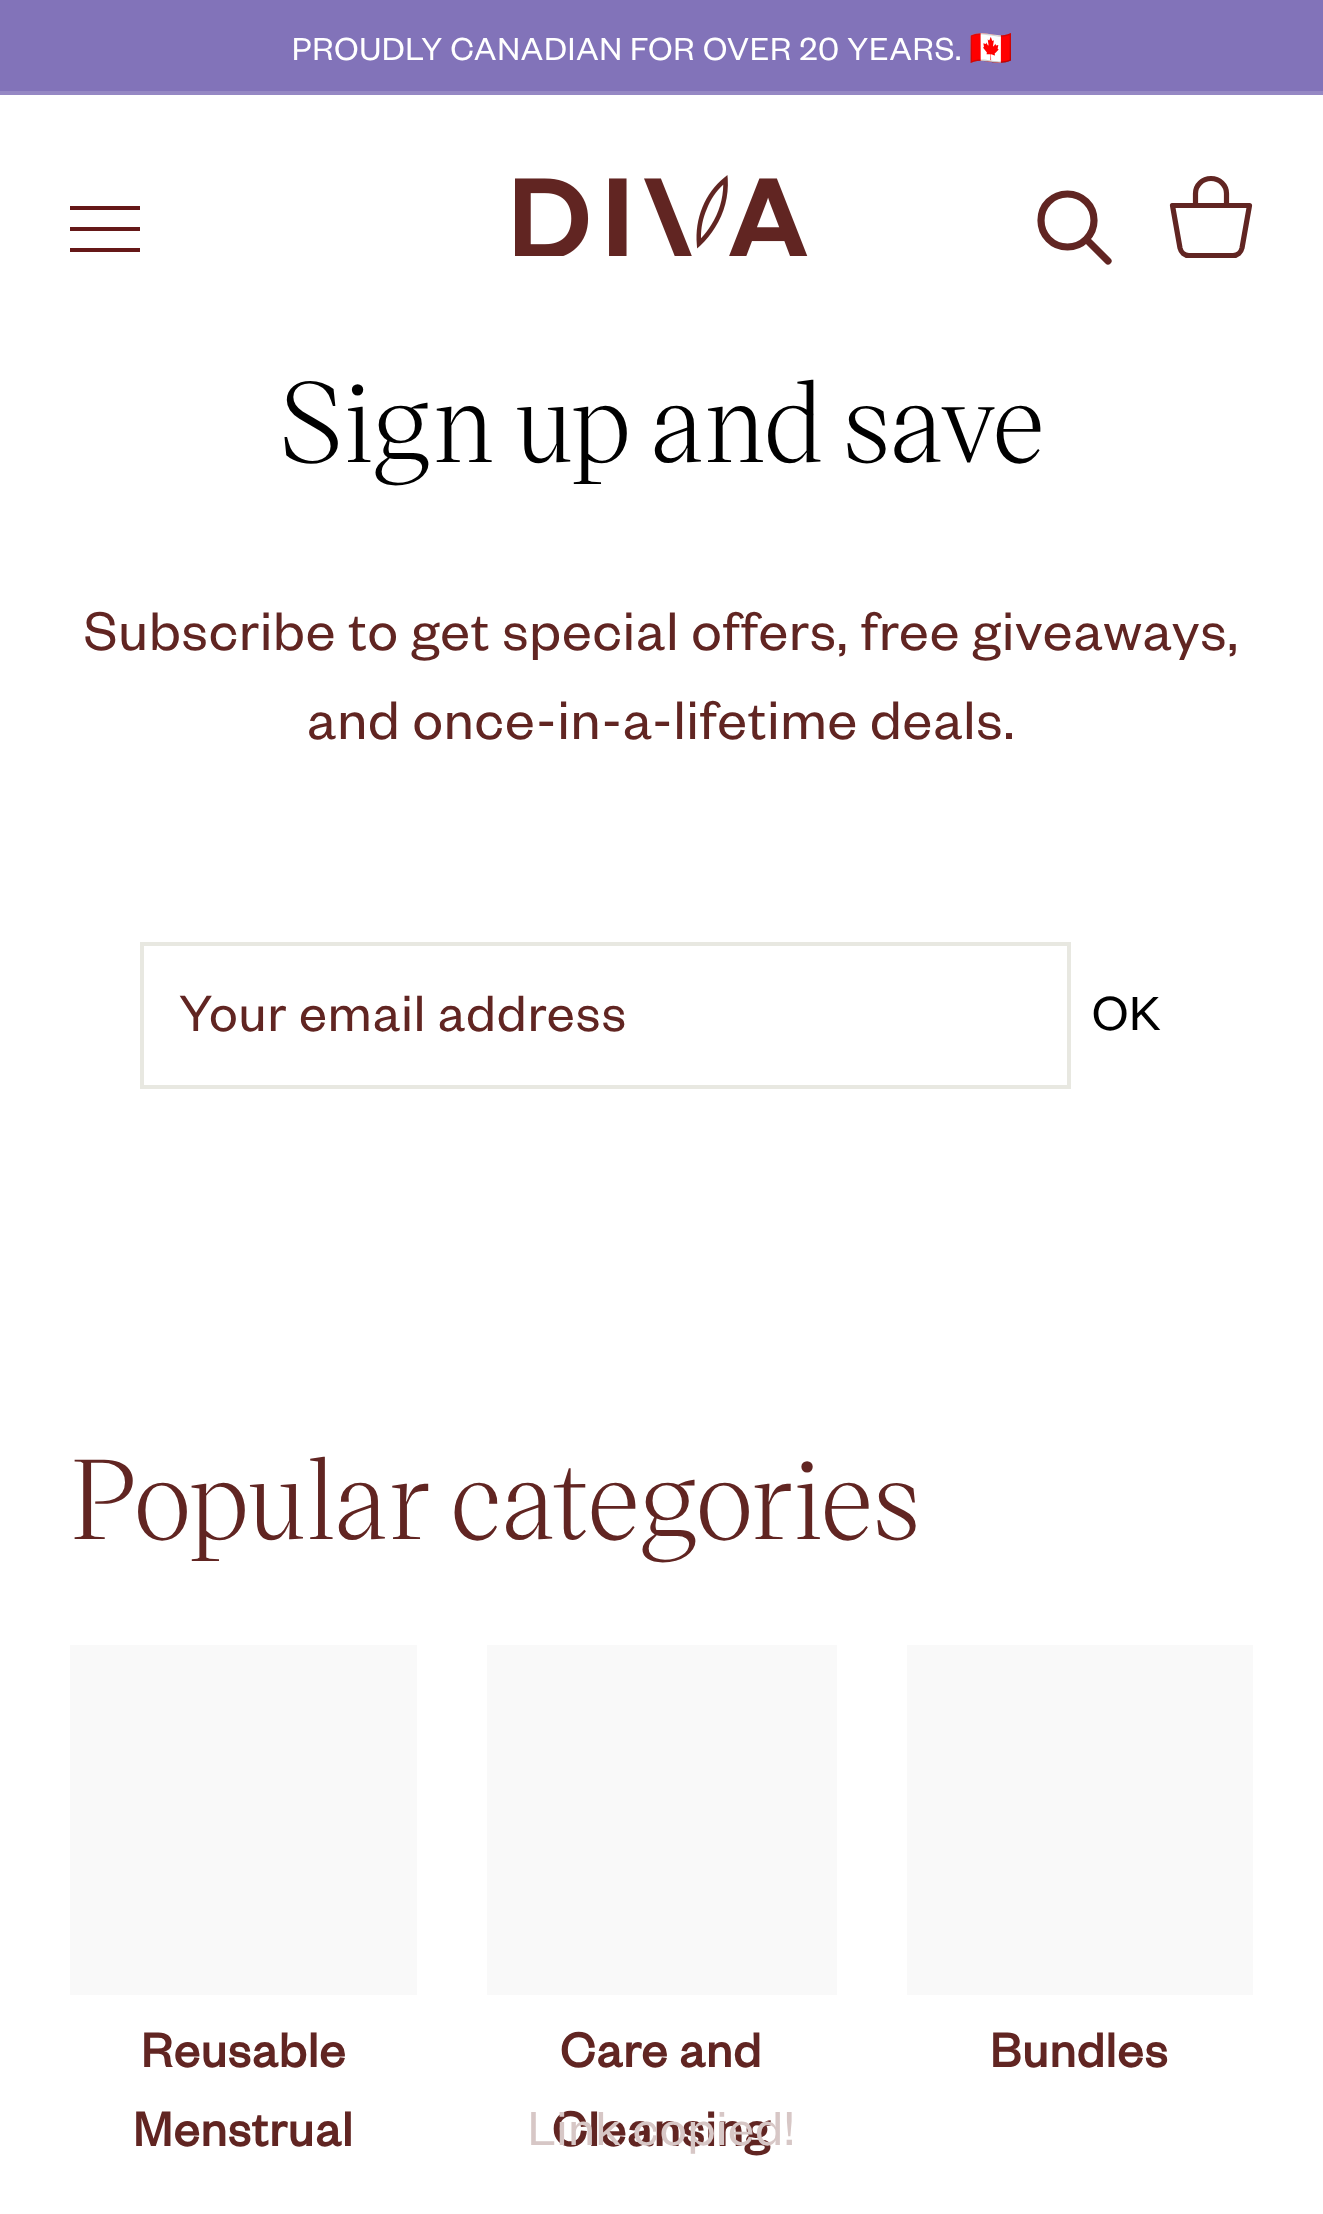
(async () => {
    const canvas = document.querySelector("canvas");
    canvas.width = 1323;
    canvas.height = 2214;
    const context = canvas.getContext("2d");
    context.miterLimit = 4;
    context.fontKerning = "normal";
    function write(s, x, y, font, color) {
        context.font = font;
        context.fillStyle = color;
        context.fillText(s, x, y);
    }
    function block(x, y, w, h, color) {
        context.fillStyle = color;
        context.fillRect(x, y, w, h);
    }
    async function photo(src, x, y, w, h) {
        const img = new Image();
        img.src = src;
        await img.decode();
        context.drawImage(img, x, y, w, h);
    }

    block(0, 0, 1323, 2214, "rgb(255, 255, 255)");
    block(0, 0, 1323, 91, "rgb(130, 115, 185)");
    context.letterSpacing = "1.05px";
    write("PROUDLY CANADIAN FOR OVER 20 YEARS.", 292, 60, "35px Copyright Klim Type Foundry", "rgb(255, 255, 255)");
    write("🇨🇦", 969, 60, "35px Noto Color Emoji", "rgb(255, 255, 255)");
    block(0, 91, 1323, 4, "rgb(149, 136, 196)");
    block(70, 206, 70, 4, "rgb(101, 24, 24)");
    block(70, 227, 70, 4, "rgb(101, 24, 24)");
    block(70, 248, 70, 4, "rgb(101, 24, 24)");
    await photo("media/1.png", 515, 175, 293, 81);
    context.beginPath();
    context.moveTo(1089, 242);
    context.lineTo(1108, 261);
    context.strokeStyle = "rgb(97, 37, 34)";
    context.lineWidth = 7.2;
    context.lineCap = "round";
    context.lineJoin = "round";
    context.stroke();
    context.beginPath();
    context.moveTo(1067.5, 247);
    context.bezierCurveTo(1082, 247, 1094, 235, 1094, 220.5);
    context.bezierCurveTo(1094, 205.5, 1082, 194, 1067.5, 194);
    context.bezierCurveTo(1052.5, 194, 1041, 205.5, 1041, 220.5);
    context.bezierCurveTo(1041, 235, 1052.5, 247, 1067.5, 247);
    context.closePath();
    context.stroke();
    context.beginPath();
    context.moveTo(1226.5, 205.5);
    context.lineTo(1226.5, 193.5);
    context.bezierCurveTo(1226.5, 185, 1219.5, 178.5, 1211, 178.5);
    context.bezierCurveTo(1202.5, 178.5, 1195.5, 185, 1195.5, 193.5);
    context.lineTo(1195.5, 205.5);
    context.moveTo(1233, 255.5);
    context.lineTo(1189, 255.5);
    context.bezierCurveTo(1184.5, 255.5, 1181, 252.5, 1180, 248);
    context.lineTo(1172.5, 205.5);
    context.lineTo(1249.5, 205.5);
    context.lineTo(1242, 248);
    context.bezierCurveTo(1241, 252.5, 1237.5, 255.5, 1233, 255.5);
    context.closePath();
    context.lineWidth = 5.2;
    context.lineCap = "butt";
    context.stroke();
    context.letterSpacing = "0px";
    write("Sign up and save", 278, 462, "110.25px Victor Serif", "rgb(0, 0, 0)");
    context.letterSpacing = "1.3px";
    write("Subscribe to get special offers, free giveaways,", 84, 650, "59.5px Copyright Klim Type Foundry", "rgb(97, 37, 34)");
    write("and once-in-a-lifetime deals.", 307, 739, "59.5px Copyright Klim Type Foundry", "rgb(97, 37, 34)");
    context.strokeStyle = "rgb(232, 232, 225)";
    context.lineWidth = 4;
    context.lineJoin = "miter";
    context.strokeRect(142, 944, 927, 143);
    context.letterSpacing = "1.4px";
    write("Your email address", 179, 1031, "56px Copyright Klim Type Foundry", "rgb(97, 37, 34)");
    context.letterSpacing = "1.3px";
    write("OK", 1092, 1030, "52.5px Copyright Klim Type Foundry", "rgb(0, 0, 0)");
    context.letterSpacing = "0px";
    write("Popular categories", 70, 1539, "110.25px Victor Serif", "rgb(97, 37, 34)");
    block(70, 1645, 347, 350, "rgb(249, 249, 249)");
    context.letterSpacing = "1.3px";
    write("Reusable", 141, 2067, "bold 52.5px Copyright Klim Type Foundry", "rgb(97, 37, 34)");
    write("Menstrual", 133, 2146, "bold 52.5px Copyright Klim Type Foundry", "rgb(97, 37, 34)");
    block(487, 1645, 350, 350, "rgb(249, 249, 249)");
    write("Care and", 560, 2067, "bold 52.5px Copyright Klim Type Foundry", "rgb(97, 37, 34)");
    write("Cleansing", 552, 2146, "bold 52.5px Copyright Klim Type Foundry", "rgb(97, 37, 34)");
    block(907, 1645, 346, 350, "rgb(249, 249, 249)");
    write("Bundles", 990, 2067, "bold 52.5px Copyright Klim Type Foundry", "rgb(97, 37, 34)");
    write("Link copied!", 528, 2145, "52.5px Copyright Klim Type Foundry", "rgb(215, 199, 198)");
})();
